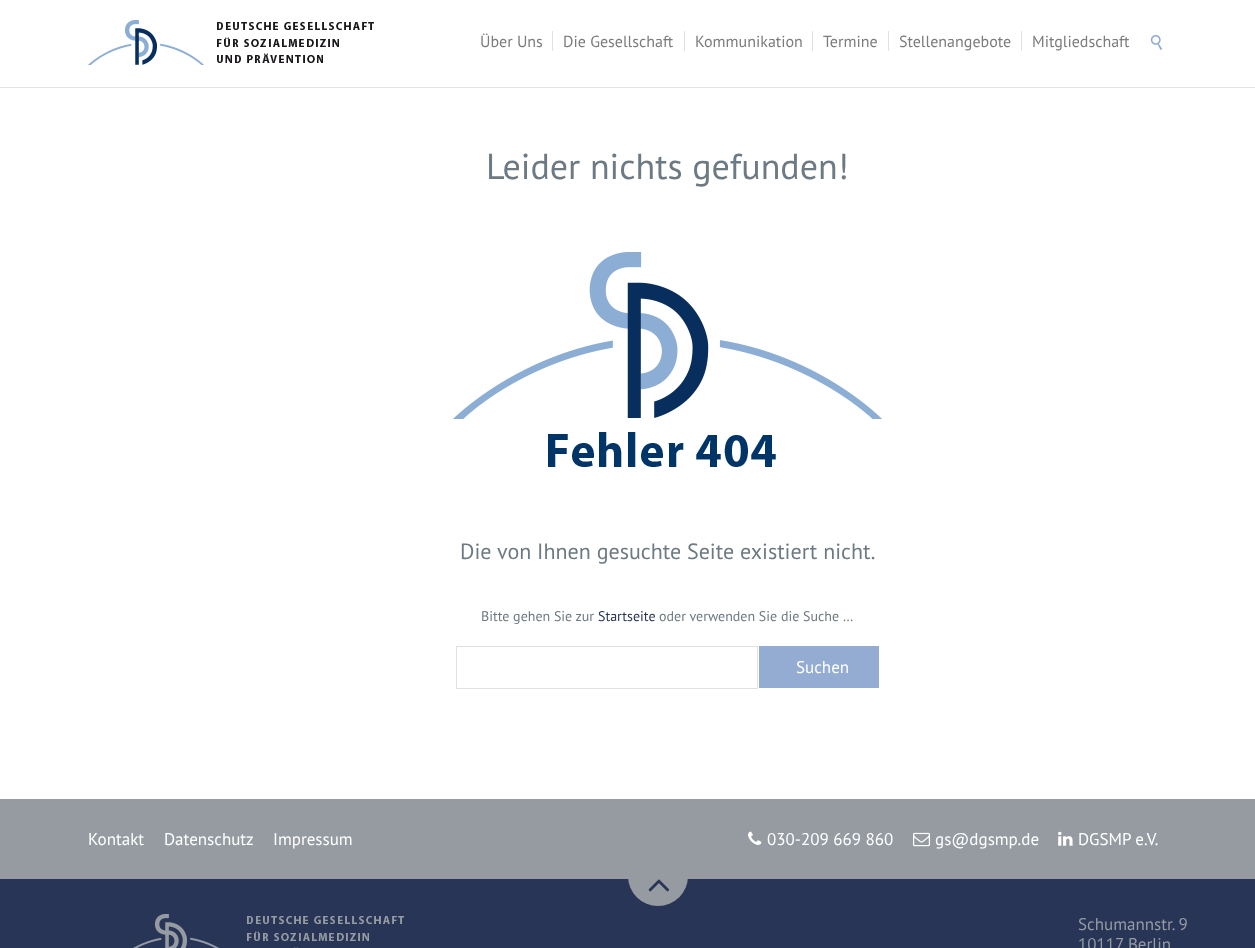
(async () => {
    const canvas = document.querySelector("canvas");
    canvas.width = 1255;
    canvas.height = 948;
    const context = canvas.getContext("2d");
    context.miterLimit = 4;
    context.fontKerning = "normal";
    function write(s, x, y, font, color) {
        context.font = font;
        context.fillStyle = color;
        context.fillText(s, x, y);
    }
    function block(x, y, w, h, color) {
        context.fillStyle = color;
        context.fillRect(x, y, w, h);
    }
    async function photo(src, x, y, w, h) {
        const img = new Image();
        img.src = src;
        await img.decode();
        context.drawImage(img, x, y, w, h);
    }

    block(0, 0, 1255, 948, "rgb(255, 255, 255)");
    block(0, 87, 1255, 1, "rgb(226, 227, 226)");
    await photo("media/1.png", 88, 20, 286, 45);
    write("Über Uns", 480, 47, "16px PT Sans", "rgb(124, 124, 124)");
    block(552, 31, 1, 20, "rgb(225, 225, 225)");
    write("Die Gesellschaft", 563, 47, "16px PT Sans", "rgb(124, 124, 124)");
    block(684, 31, 1, 20, "rgb(225, 225, 225)");
    write("Kommunikation", 695, 47, "16px PT Sans", "rgb(124, 124, 124)");
    block(812, 31, 1, 20, "rgb(225, 225, 225)");
    write("Termine", 823, 47, "16px PT Sans", "rgb(124, 124, 124)");
    block(888, 31, 1, 20, "rgb(225, 225, 225)");
    write("Stellenangebote", 899, 47, "16px PT Sans", "rgb(124, 124, 124)");
    block(1021, 31, 1, 20, "rgb(225, 225, 225)");
    write("Mitgliedschaft", 1032, 47, "16px PT Sans", "rgb(124, 124, 124)");
    await photo("media/2.png", 1150, 34, 13, 16);
    write("Leider nichts gefunden!", 486, 179, "36px PT Sans", "rgb(109, 122, 131)");
    await photo("media/3.png", 453, 252, 429, 215);
    write("Die von Ihnen gesuchte Seite existiert nicht.", 460, 559, "22px PT Sans", "rgb(109, 122, 131)");
    write("Bitte gehen Sie zur", 481, 621, "14px PT Sans", "rgb(109, 122, 131)");
    write("Startseite", 598, 621, "14px PT Sans", "rgb(40, 53, 87)");
    write("oder verwenden Sie die Suche …", 659, 621, "14px PT Sans", "rgb(109, 122, 131)");
    context.strokeStyle = "rgb(225, 225, 225)";
    context.strokeRect(456.5, 646.5, 301, 42);
    block(759, 646, 120, 42, "rgb(148, 172, 210)");
    write("Suchen", 796, 673, "17px PT Sans", "rgb(255, 255, 255)");
    block(0, 799, 1255, 80, "rgb(150, 155, 162)");
    write("Kontakt", 88, 845, "17px PT Sans", "rgb(255, 255, 255)");
    write("Datenschutz", 164, 845, "17px PT Sans", "rgb(255, 255, 255)");
    write("Impressum", 273, 845, "17px PT Sans", "rgb(255, 255, 255)");
    await photo("media/4.png", 748, 831, 14, 14);
    write("030-209 669 860", 767, 845, "17px PT Sans", "rgb(255, 255, 255)");
    await photo("media/5.png", 913, 832, 17, 15);
    write("gs@dgsmp.de", 935, 845, "17px PT Sans", "rgb(255, 255, 255)");
    await photo("media/6.png", 1058, 831, 15, 15);
    write("DGSMP e.V.", 1078, 845, "17px PT Sans", "rgb(255, 255, 255)");
    block(0, 879, 1255, 69, "rgb(40, 53, 87)");
    context.fillStyle = "rgb(150, 155, 162)";
    context.beginPath();
    context.arc(658, 876, 30, 0, Math.PI * 2);
    context.fill();
    await photo("media/7.png", 648, 879, 22, 13);
    await photo("media/8.png", 133, 914, 271, 34);
    write("Schumannstr. 9", 1078, 930, "17px PT Sans", "rgb(150, 155, 162)");
    write("10117 Berlin", 1078, 950, "17px PT Sans", "rgb(150, 155, 162)");
})();
